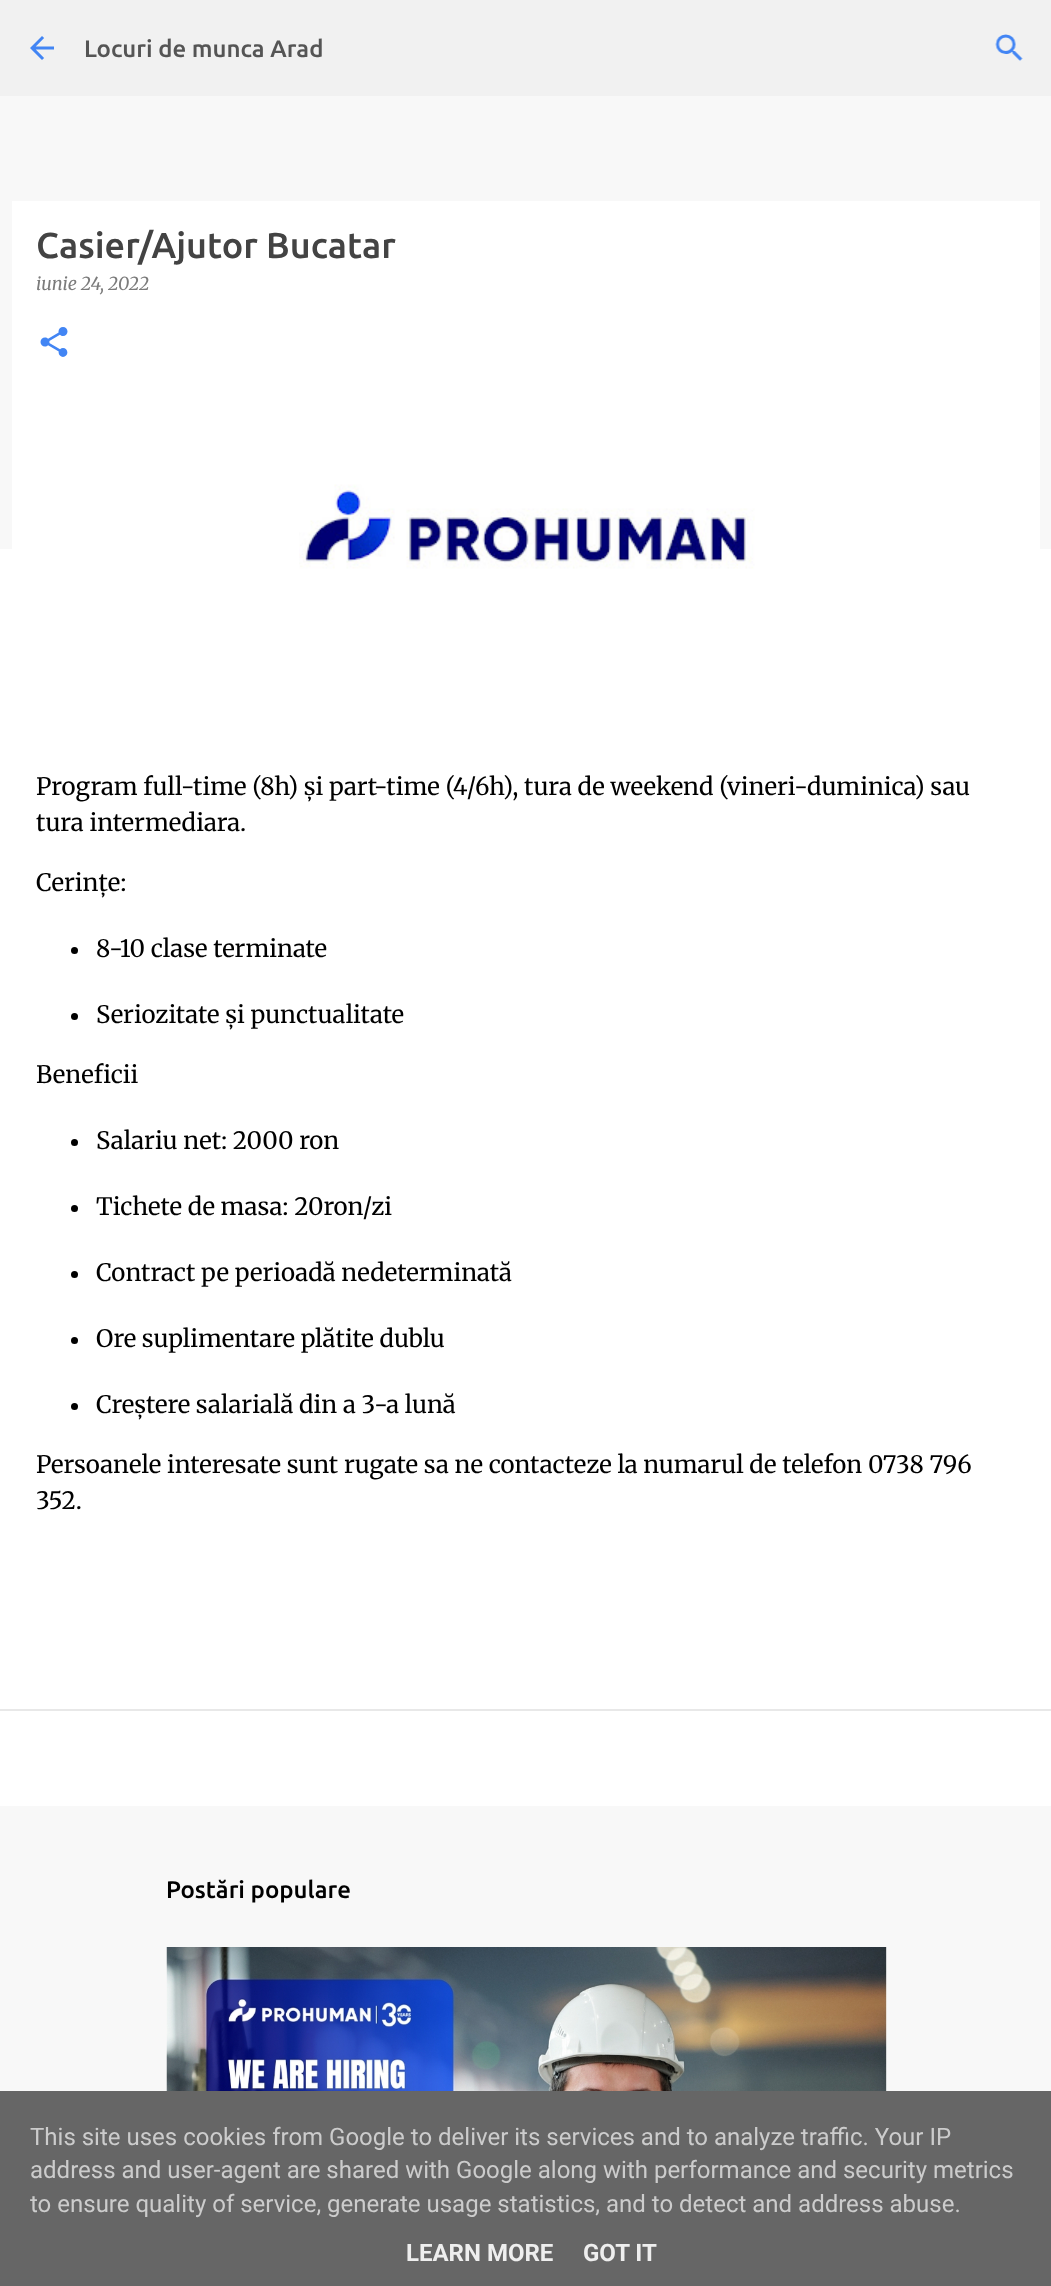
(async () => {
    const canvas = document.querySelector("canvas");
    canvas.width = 1051;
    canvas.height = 2286;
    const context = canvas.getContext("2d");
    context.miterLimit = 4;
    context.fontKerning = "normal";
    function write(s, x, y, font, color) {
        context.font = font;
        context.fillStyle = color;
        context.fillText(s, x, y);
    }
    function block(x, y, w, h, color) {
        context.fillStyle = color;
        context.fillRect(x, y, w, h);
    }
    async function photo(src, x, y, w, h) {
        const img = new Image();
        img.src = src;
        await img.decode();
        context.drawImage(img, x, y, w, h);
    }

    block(0, 0, 1051, 2286, "rgb(248, 248, 248)");
    block(0, 0, 1051, 96, "rgb(241, 241, 241)");
    await photo("media/1.png", 30, 36, 24, 24);
    write("Locuri de munca Arad", 84, 57, "500 24px Ubuntu", "rgb(85, 85, 85)");
    await photo("media/2.png", 995, 34, 28, 27);
    block(0, 549, 1051, 1160, "rgb(255, 255, 255)");
    block(12, 201, 1028, 348, "rgb(255, 255, 255)");
    write("Casier/Ajutor Bucatar", 36, 258, "500 36px Ubuntu", "rgb(67, 67, 67)");
    write("iunie 24, 2022", 36, 290, "italic 18px Merriweather", "rgb(123, 123, 123)");
    await photo("media/3.png", 40, 327, 28, 30);
    await photo("media/4.png", 299, 484, 456, 85);
    write("Program full-time (8h) și part-time (4/6h), tura de weekend (vineri-duminica) sau", 36, 795, "24px Merriweather", "rgb(0, 0, 0)");
    write("tura intermediara.", 36, 831, "24px Merriweather", "rgb(0, 0, 0)");
    write("Cerințe:", 36, 891, "24px Merriweather", "rgb(0, 0, 0)");
    context.beginPath();
    context.arc(74.5, 950.5, 3.5, 0, Math.PI * 2);
    context.fill();
    write("8-10 clase terminate", 96, 957, "24px Merriweather", "rgb(0, 0, 0)");
    context.beginPath();
    context.arc(74.5, 1016.5, 3.5, 0, Math.PI * 2);
    context.fill();
    write("Seriozitate și punctualitate", 96, 1023, "24px Merriweather", "rgb(0, 0, 0)");
    write("Beneficii", 36, 1083, "24px Merriweather", "rgb(0, 0, 0)");
    context.beginPath();
    context.arc(74.5, 1142.5, 3.5, 0, Math.PI * 2);
    context.fill();
    write("Salariu net: 2000 ron", 96, 1149, "24px Merriweather", "rgb(0, 0, 0)");
    context.beginPath();
    context.arc(74.5, 1208.5, 3.5, 0, Math.PI * 2);
    context.fill();
    write("Tichete de masa: 20ron/zi", 96, 1215, "24px Merriweather", "rgb(0, 0, 0)");
    context.beginPath();
    context.arc(74.5, 1274.5, 3.5, 0, Math.PI * 2);
    context.fill();
    write("Contract pe perioadă nedeterminată", 96, 1281, "24px Merriweather", "rgb(0, 0, 0)");
    context.beginPath();
    context.arc(74.5, 1340.5, 3.5, 0, Math.PI * 2);
    context.fill();
    write("Ore suplimentare plătite dublu", 96, 1347, "24px Merriweather", "rgb(0, 0, 0)");
    context.beginPath();
    context.arc(74.5, 1406.5, 3.5, 0, Math.PI * 2);
    context.fill();
    write("Creștere salarială din a 3-a lună", 96, 1413, "24px Merriweather", "rgb(0, 0, 0)");
    write("Persoanele interesate sunt rugate sa ne contacteze la numarul de telefon 0738 796", 36, 1473, "24px Merriweather", "rgb(0, 0, 0)");
    write("352.", 36, 1509, "24px Merriweather", "rgb(0, 0, 0)");
    block(0, 1711, 1051, 95, "rgb(255, 255, 255)");
    block(0, 1709, 1051, 2, "rgb(232, 232, 232)");
    write("Postări populare", 166, 1898, "500 24px Ubuntu", "rgb(0, 0, 0)");
    await photo("media/5.png", 166, 1947, 721, 144);
    block(0, 2091, 1051, 195, "rgb(102, 102, 102)");
    write("This site uses cookies from Google to deliver its services and to analyze traffic. Your IP", 30, 2145, "24px Roboto", "rgb(204, 204, 204)");
    write("address and user-agent are shared with Google along with performance and security metrics", 30, 2178, "24px Roboto", "rgb(204, 204, 204)");
    write("to ensure quality of service, generate usage statistics, and to detect and address abuse.", 30, 2212, "24px Roboto", "rgb(204, 204, 204)");
    write("LEARN MORE", 406, 2261, "bold 24px Roboto", "rgb(238, 238, 238)");
    write("GOT IT", 583, 2261, "bold 24px Roboto", "rgb(238, 238, 238)");
})();
